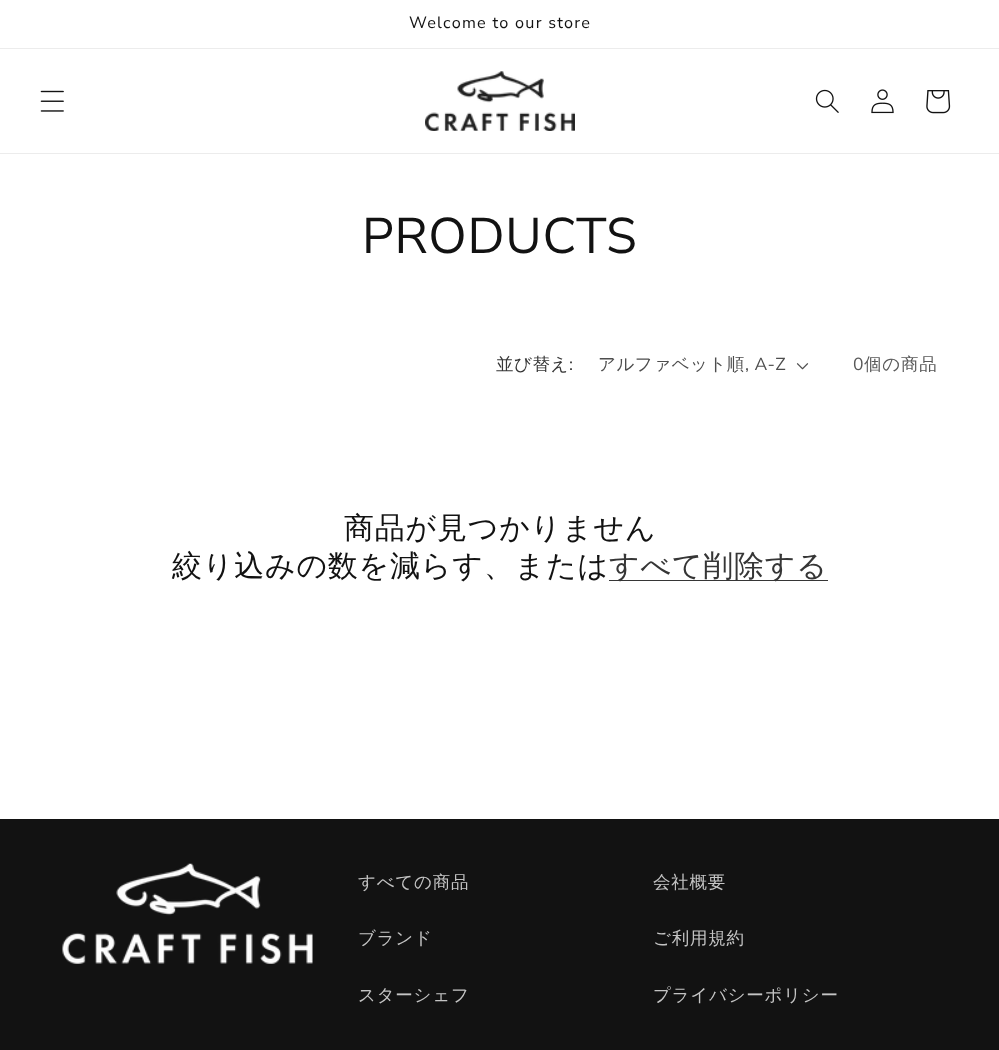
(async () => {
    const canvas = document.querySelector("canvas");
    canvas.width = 999;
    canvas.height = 1050;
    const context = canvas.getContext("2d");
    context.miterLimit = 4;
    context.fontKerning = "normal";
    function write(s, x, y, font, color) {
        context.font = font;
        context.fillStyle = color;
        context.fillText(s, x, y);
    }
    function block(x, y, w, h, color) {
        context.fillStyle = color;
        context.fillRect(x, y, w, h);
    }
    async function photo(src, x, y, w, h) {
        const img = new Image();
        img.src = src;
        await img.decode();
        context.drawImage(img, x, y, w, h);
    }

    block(0, 0, 999, 1050, "rgb(255, 255, 255)");
    block(0, 48, 999, 1, "rgb(236, 236, 236)");
    context.letterSpacing = "1.25px";
    write("Welcome to our store", 409, 28, "16.25px Nunito Sans", "rgb(18, 18, 18)");
    block(0, 153, 999, 1, "rgb(236, 236, 236)");
    await photo("media/1.png", 40, 90, 24, 22);
    await photo("media/2.png", 425, 71, 150, 60);
    await photo("media/3.png", 815, 89, 24, 24);
    await photo("media/4.png", 871, 89, 23, 25);
    await photo("media/5.png", 926, 90, 25, 24);
    context.letterSpacing = "0.75px";
    write("PRODUCTS", 362, 253, "50px Nunito Sans", "rgb(18, 18, 18)");
    context.letterSpacing = "0.5px";
    write("並び替え", 496, 370, "500 17.5px WenQuanYi Zen Hei", "rgb(54, 54, 54)");
    write(":", 569, 370, "17.5px Nunito Sans", "rgb(54, 54, 54)");
    write("アルファベット順", 598, 370, "500 17.5px WenQuanYi Zen Hei", "rgb(77, 77, 77)");
    write(", A-Z", 745, 370, "17.5px Nunito Sans", "rgb(77, 77, 77)");
    await photo("media/6.png", 796, 363, 13, 7);
    context.letterSpacing = "0.75px";
    write("0", 853, 370, "17.5px Nunito Sans", "rgb(89, 89, 89)");
    write("個の商品", 864, 370, "500 17.5px WenQuanYi Zen Hei", "rgb(89, 89, 89)");
    write("商品が見つかりません", 344, 538, "500 30px WenQuanYi Zen Hei", "rgb(18, 18, 18)");
    write("絞り込みの数を減らす、または", 172, 576, "500 30px WenQuanYi Zen Hei", "rgb(18, 18, 18)");
    block(609, 580, 219, 1, "rgb(54, 54, 54)");
    write("すべて削除する", 609, 576, "500 30px WenQuanYi Zen Hei", "rgb(54, 54, 54)");
    block(0, 819, 999, 231, "rgb(18, 18, 18)");
    await photo("media/7.png", 62, 863, 251, 101);
    write("すべての商品", 358, 888, "500 17.5px WenQuanYi Zen Hei", "rgb(196, 196, 196)");
    write("ブランド", 358, 944, "500 17.5px WenQuanYi Zen Hei", "rgb(196, 196, 196)");
    write("スターシェフ", 358, 1001, "500 17.5px WenQuanYi Zen Hei", "rgb(196, 196, 196)");
    write("会社概要", 653, 888, "500 17.5px WenQuanYi Zen Hei", "rgb(196, 196, 196)");
    write("ご利用規約", 653, 944, "500 17.5px WenQuanYi Zen Hei", "rgb(196, 196, 196)");
    write("プライバシーポリシー", 653, 1001, "500 17.5px WenQuanYi Zen Hei", "rgb(196, 196, 196)");
})();
